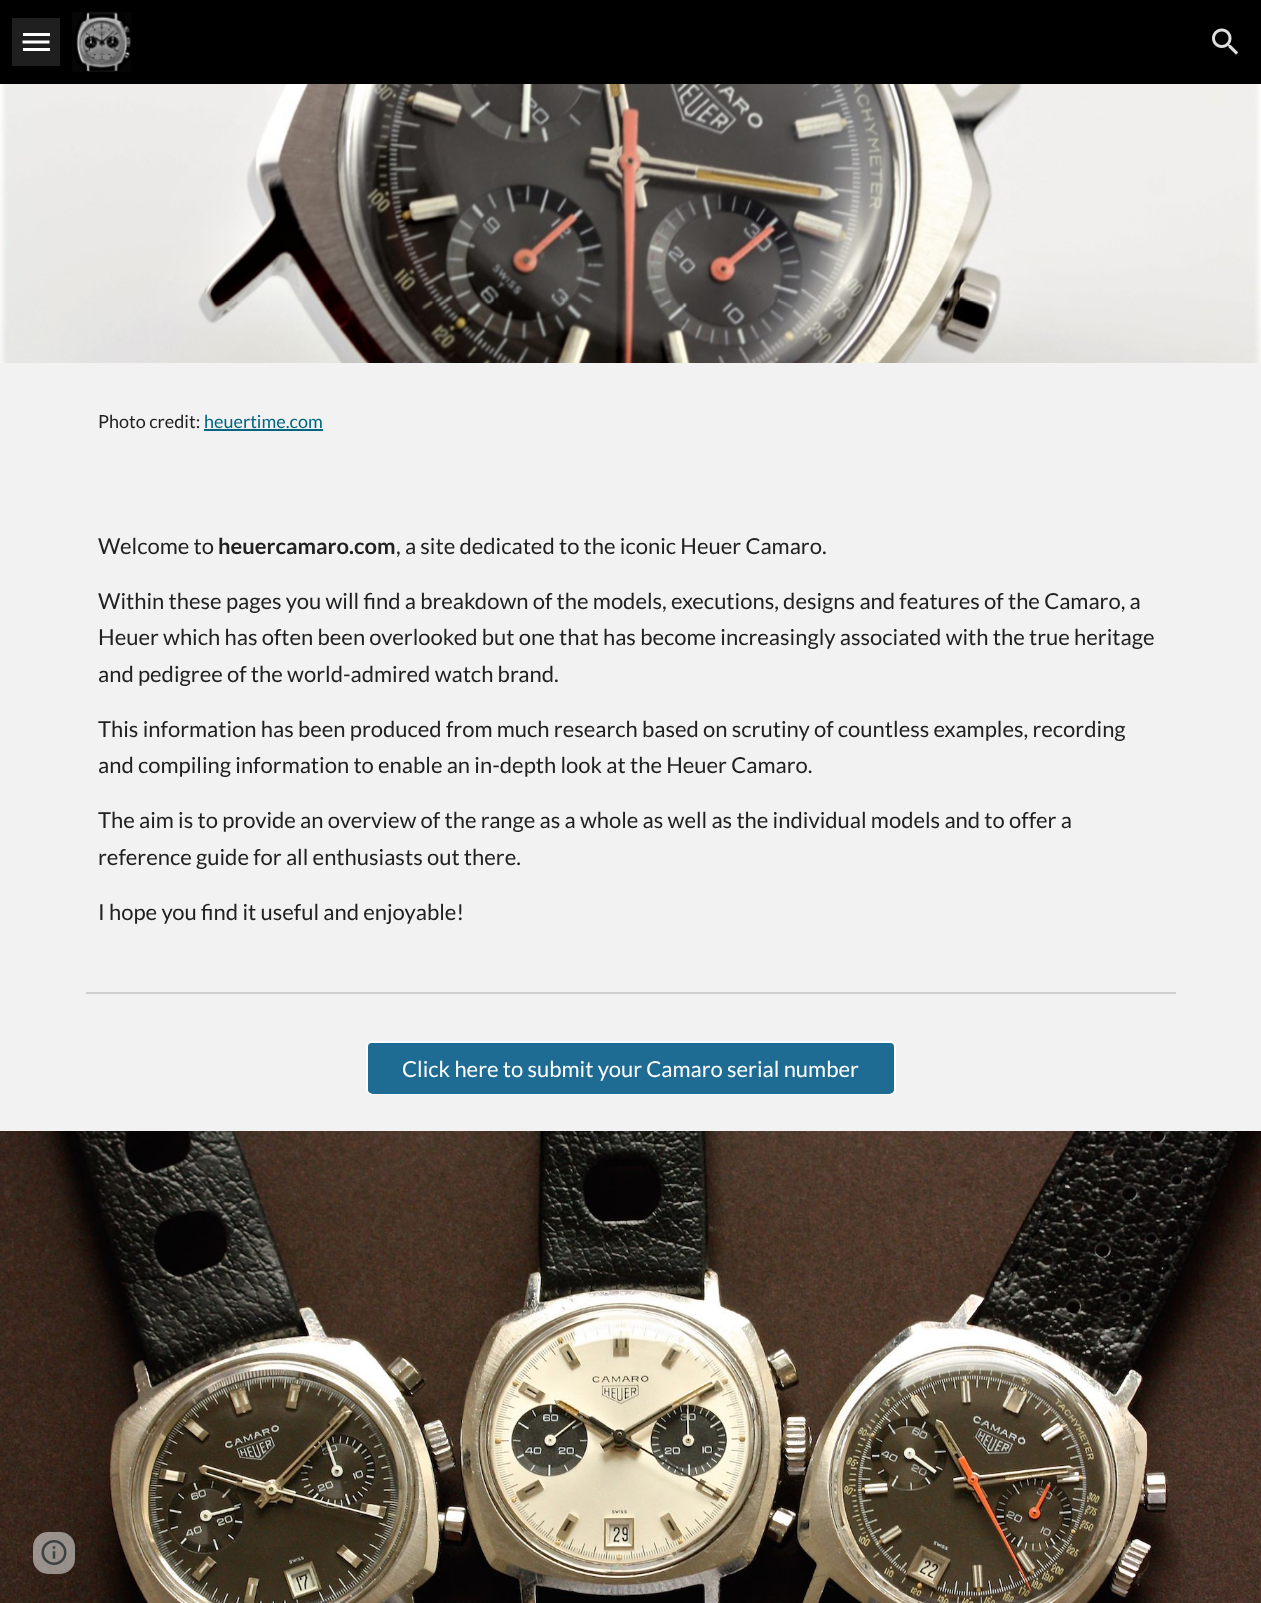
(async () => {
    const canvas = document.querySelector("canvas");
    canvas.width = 1261;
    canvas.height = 1603;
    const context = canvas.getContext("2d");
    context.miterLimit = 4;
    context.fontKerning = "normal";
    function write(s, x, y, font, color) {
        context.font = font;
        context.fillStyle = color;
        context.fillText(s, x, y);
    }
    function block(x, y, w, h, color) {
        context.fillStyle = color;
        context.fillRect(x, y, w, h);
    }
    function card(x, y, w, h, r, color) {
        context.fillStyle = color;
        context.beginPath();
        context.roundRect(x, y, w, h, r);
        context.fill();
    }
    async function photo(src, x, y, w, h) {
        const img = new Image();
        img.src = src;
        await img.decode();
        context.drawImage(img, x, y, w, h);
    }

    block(0, 0, 1261, 1603, "rgb(255, 255, 255)");
    block(0, 0, 1261, 84, "rgb(0, 0, 0)");
    await photo("media/1.png", 72, 11, 60, 61);
    block(23, 33, 27, 3, "rgb(255, 255, 255)");
    context.beginPath();
    context.moveTo(22.5, 42);
    context.lineTo(49.5, 42);
    context.strokeStyle = "rgb(255, 255, 255)";
    context.lineWidth = 3;
    context.stroke();
    block(23, 48, 27, 3, "rgb(255, 255, 255)");
    block(12, 18, 48, 48, "rgba(255, 255, 255, 0.12)");
    await photo("media/2.png", 1212, 28, 27, 27);
    await photo("media/3.png", 0, 84, 1261, 279);
    block(0, 363, 1261, 768, "rgb(242, 242, 242)");
    write("Photo credit:", 98, 428, "18px Lato", "rgb(33, 33, 33)");
    write("heuertime.com", 204, 428, "18px Lato", "rgb(0, 101, 128)");
    block(204, 429, 119, 2, "rgb(0, 101, 128)");
    write("Welcome to", 98, 554, "22px Lato", "rgb(33, 33, 33)");
    write("heuercamaro.com", 218, 554, "bold 22px Lato", "rgb(33, 33, 33)");
    write(", a site dedicated to the iconic Heuer Camaro.", 396, 554, "22px Lato", "rgb(33, 33, 33)");
    write("Within these pages you will find a breakdown of the models, executions, designs and features of the Camaro, a", 98, 609, "22px Lato", "rgb(33, 33, 33)");
    write("Heuer which has often been overlooked but one that has become increasingly associated with the true heritage", 98, 645, "22px Lato", "rgb(33, 33, 33)");
    write("and pedigree of the world-admired watch brand.", 98, 682, "22px Lato", "rgb(33, 33, 33)");
    write("This information has been produced from much research based on scrutiny of countless examples, recording", 98, 737, "22px Lato", "rgb(33, 33, 33)");
    write("and compiling information to enable an in-depth look at the Heuer Camaro.", 98, 773, "22px Lato", "rgb(33, 33, 33)");
    write("The aim is to provide an overview of the range as a whole as well as the individual models and to offer a", 98, 828, "22px Lato", "rgb(33, 33, 33)");
    write("reference guide for all enthusiasts out there.", 98, 865, "22px Lato", "rgb(33, 33, 33)");
    write("I hope you find it useful and enjoyable!", 98, 920, "22px Lato", "rgb(33, 33, 33)");
    block(86, 992, 1090, 2, "rgb(206, 206, 206)");
    context.fillStyle = "rgb(30, 108, 147)";
    context.beginPath();
    context.roundRect(367, 1042, 528, 52, 5);
    context.fill();
    context.lineWidth = 2;
    context.stroke();
    card(368, 1043, 526, 51, 5, "rgb(30, 108, 147)");
    write("Click here to submit your Camaro serial number", 402, 1077, "22px Lato", "rgb(255, 255, 255)");
    await photo("media/4.png", 0, 1131, 1261, 472);
    card(33, 1532, 42, 42, 15, "rgba(255, 255, 255, 0.5)");
    await photo("media/5.png", 41, 1540, 26, 25);
})();
